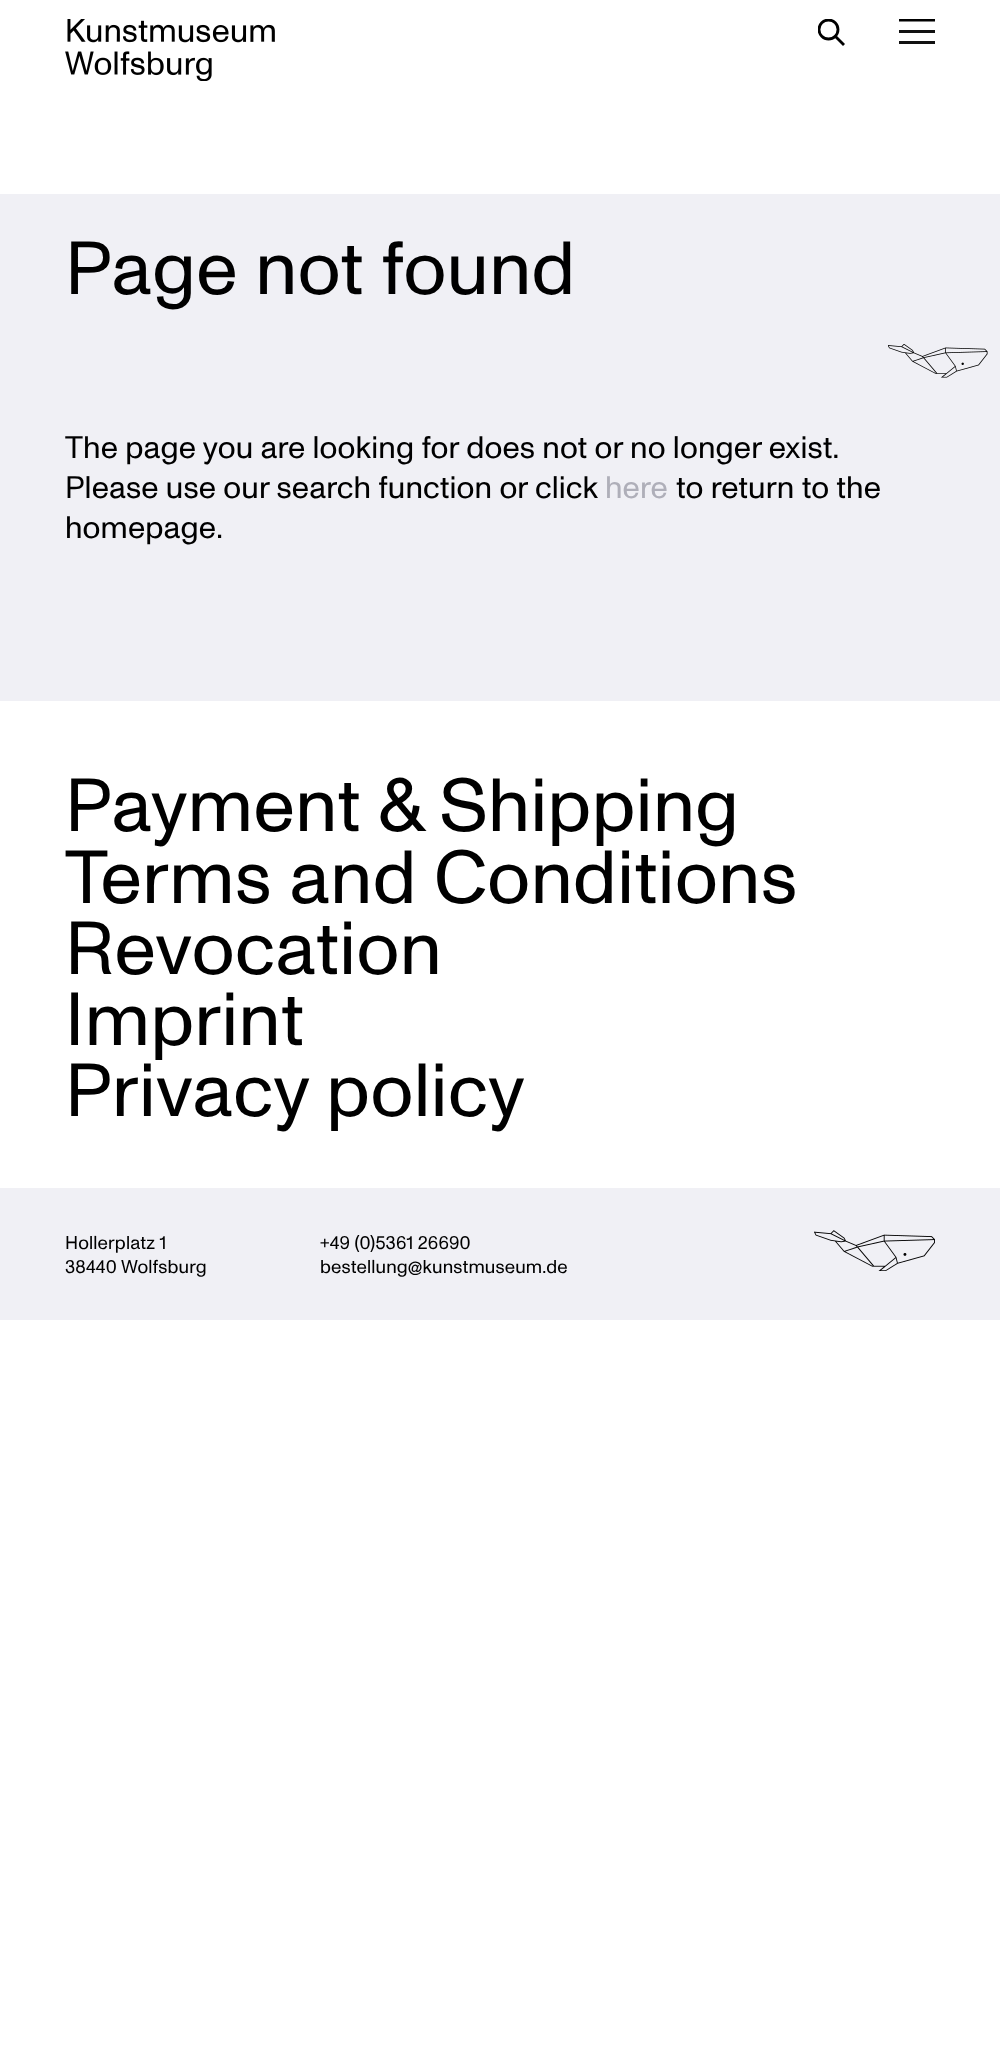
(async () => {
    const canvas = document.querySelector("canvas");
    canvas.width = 1000;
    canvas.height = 2058;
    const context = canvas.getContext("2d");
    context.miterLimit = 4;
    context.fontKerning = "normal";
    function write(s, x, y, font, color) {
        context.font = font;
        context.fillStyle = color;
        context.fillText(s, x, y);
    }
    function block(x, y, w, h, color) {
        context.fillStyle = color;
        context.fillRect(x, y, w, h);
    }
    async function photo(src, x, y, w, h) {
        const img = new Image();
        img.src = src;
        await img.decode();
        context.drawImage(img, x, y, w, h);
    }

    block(0, 0, 1000, 2058, "rgb(255, 255, 255)");
    await photo("media/1.png", 65, 19, 210, 62);
    context.save();
    context.beginPath();
    context.rect(818, 19, 27, 27);
    context.clip();
    context.beginPath();
    context.arc(828.5, 29.5, 9.5, 0, Math.PI * 2);
    context.strokeStyle = "rgb(0, 0, 0)";
    context.lineWidth = 2.8;
    context.stroke();
    context.restore();
    context.beginPath();
    context.moveTo(834.5, 35.5);
    context.lineTo(844, 45);
    context.strokeStyle = "rgb(0, 0, 0)";
    context.lineWidth = 2.8;
    context.stroke();
    context.save();
    context.beginPath();
    context.rect(899, 19, 36, 25);
    context.clip();
    context.beginPath();
    context.moveTo(899, 20);
    context.lineTo(935, 20);
    context.stroke();
    context.restore();
    block(899, 30, 36, 3, "rgb(17, 17, 17)");
    block(899, 41, 36, 3, "rgb(17, 17, 17)");
    block(0, 194, 1000, 507, "rgb(240, 240, 245)");
    context.letterSpacing = "0.5px";
    write("Page not found", 65, 294, "75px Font", "rgb(0, 0, 0)");
    context.letterSpacing = "0.15px";
    write("The page you are looking for does not or no longer exist.", 65, 458, "31.25px Font", "rgb(0, 0, 0)");
    write("Please use our search function or click", 65, 498, "31.25px Font", "rgb(0, 0, 0)");
    write("here", 605, 498, "31.25px Font", "rgb(175, 175, 185)");
    write("to return to the", 676, 498, "31.25px Font", "rgb(0, 0, 0)");
    write("homepage.", 65, 538, "31.25px Font", "rgb(0, 0, 0)");
    await photo("media/2.png", 888, 344, 100, 34);
    context.letterSpacing = "0.5px";
    write("Payment & Shipping", 65, 831, "75px Font", "rgb(0, 0, 0)");
    write("Terms and Conditions", 65, 903, "75px Font", "rgb(0, 0, 0)");
    write("Revocation", 65, 974, "75px Font", "rgb(0, 0, 0)");
    write("Imprint", 65, 1045, "75px Font", "rgb(0, 0, 0)");
    write("Privacy policy", 65, 1116, "75px Font", "rgb(0, 0, 0)");
    block(0, 1188, 1000, 132, "rgb(240, 240, 245)");
    context.letterSpacing = "0.15px";
    write("Hollerplatz 1", 65, 1249, "18.75px Font", "rgb(0, 0, 0)");
    write("38440 Wolfsburg", 65, 1273, "18.75px Font", "rgb(0, 0, 0)");
    write("+49 (0)5361 26690", 320, 1249, "18.75px Font", "rgb(0, 0, 0)");
    write("bestellung@kunstmuseum.de", 320, 1273, "18.75px Font", "rgb(0, 0, 0)");
    await photo("media/3.png", 814, 1230, 121, 41);
})();
